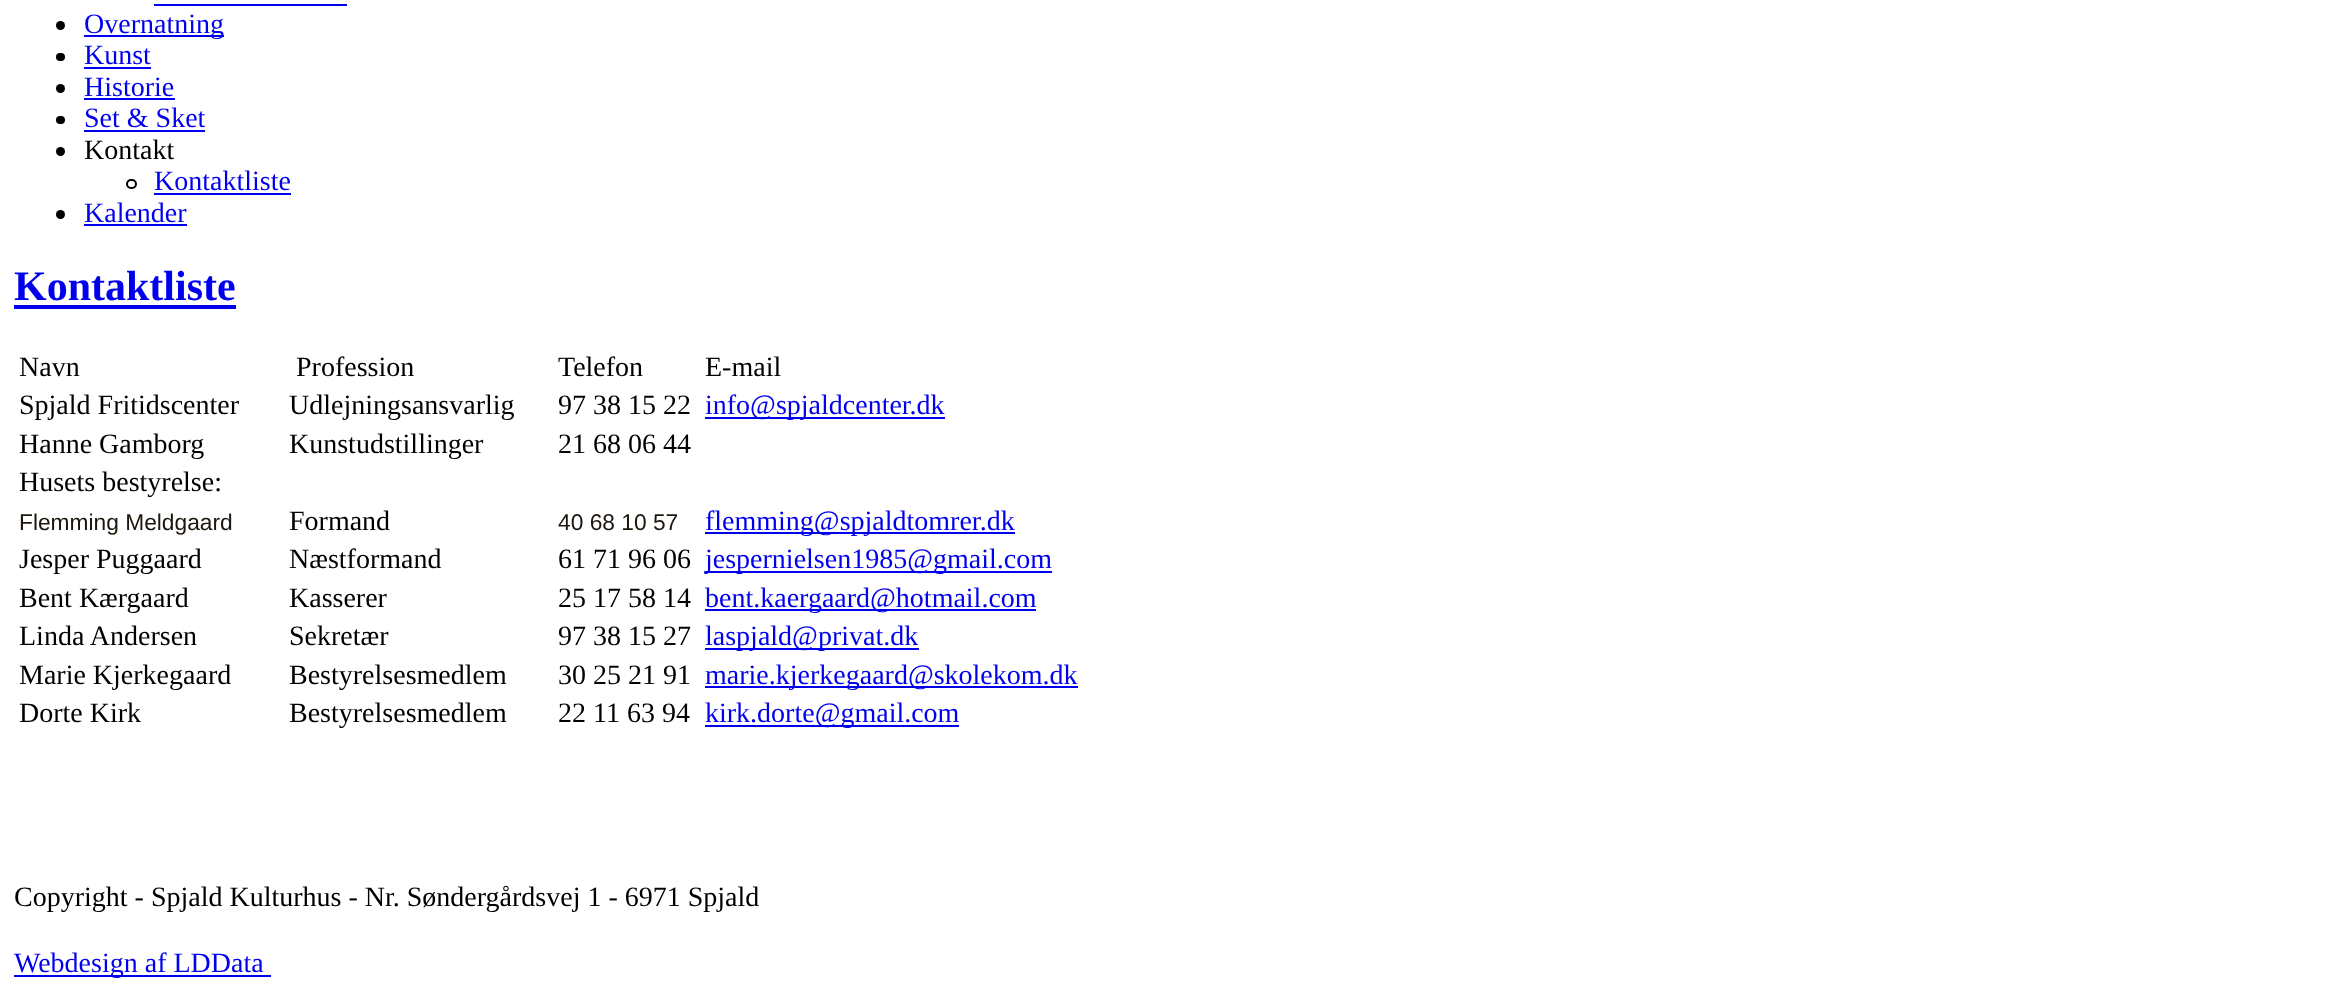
(async () => {
    const canvas = document.querySelector("canvas");
    canvas.width = 2340;
    canvas.height = 1008;
    const context = canvas.getContext("2d");
    context.miterLimit = 4;
    context.fontKerning = "normal";
    function write(s, x, y, font, color) {
        context.font = font;
        context.fillStyle = color;
        context.fillText(s, x, y);
    }
    function block(x, y, w, h, color) {
        context.fillStyle = color;
        context.fillRect(x, y, w, h);
    }
    function card(x, y, w, h, r, color) {
        context.fillStyle = color;
        context.beginPath();
        context.roundRect(x, y, w, h, r);
        context.fill();
    }

    block(0, 0, 2340, 1008, "rgb(255, 255, 255)");
    block(154, 4, 193, 2, "rgb(0, 0, 238)");
    context.fillStyle = "rgb(0, 0, 0)";
    context.beginPath();
    context.arc(60.5, 25.5, 4.5, 0, Math.PI * 2);
    context.fill();
    block(84, 35, 140, 2, "rgb(0, 0, 238)");
    write("Overnatning", 84, 33, "28px Liberation Serif", "rgb(0, 0, 238)");
    card(56, 53, 9, 8, 4, "rgb(0, 0, 0)");
    write("Kunst", 84, 64, "28px Liberation Serif", "rgb(0, 0, 238)");
    block(84, 67, 67, 2, "rgb(0, 0, 238)");
    context.fillStyle = "rgb(0, 0, 0)";
    context.beginPath();
    context.arc(60.5, 88.5, 4.5, 0, Math.PI * 2);
    context.fill();
    write("Historie", 84, 96, "28px Liberation Serif", "rgb(0, 0, 238)");
    block(84, 98, 91, 2, "rgb(0, 0, 238)");
    card(56, 116, 9, 8, 4, "rgb(0, 0, 0)");
    write("Set & Sket", 84, 127, "28px Liberation Serif", "rgb(0, 0, 238)");
    block(84, 130, 121, 2, "rgb(0, 0, 238)");
    context.fillStyle = "rgb(0, 0, 0)";
    context.beginPath();
    context.arc(60.5, 151.5, 4.5, 0, Math.PI * 2);
    context.fill();
    write("Kontakt", 84, 159, "28px Liberation Serif", "rgb(0, 0, 0)");
    context.beginPath();
    context.roundRect(127, 180, 9, 8, 4);
    context.strokeStyle = "rgb(0, 0, 0)";
    context.lineWidth = 2;
    context.stroke();
    write("Kontaktliste", 154, 190, "28px Liberation Serif", "rgb(0, 0, 238)");
    block(154, 193, 137, 2, "rgb(0, 0, 238)");
    context.fillStyle = "rgb(0, 0, 0)";
    context.beginPath();
    context.arc(60.5, 214.5, 4.5, 0, Math.PI * 2);
    context.fill();
    write("Kalender", 84, 222, "28px Liberation Serif", "rgb(0, 0, 238)");
    block(84, 224, 103, 2, "rgb(0, 0, 238)");
    write("Kontaktliste", 14, 300, "bold 42px Liberation Serif", "rgb(0, 0, 238)");
    block(14, 305, 222, 4, "rgb(0, 0, 238)");
    write("Navn", 19, 376, "28px Liberation Serif", "rgb(0, 0, 0)");
    write("Profession", 296, 376, "28px Liberation Serif", "rgb(0, 0, 0)");
    write("Telefon", 558, 376, "28px Liberation Serif", "rgb(0, 0, 0)");
    write("E-mail", 705, 376, "28px Liberation Serif", "rgb(0, 0, 0)");
    write("Spjald Fritidscenter", 19, 414, "28px Liberation Serif", "rgb(0, 0, 0)");
    write("Udlejningsansvarlig", 289, 414, "28px Liberation Serif", "rgb(0, 0, 0)");
    write("97 38 15 22", 558, 414, "28px Liberation Serif", "rgb(0, 0, 0)");
    block(705, 417, 240, 2, "rgb(0, 0, 238)");
    write("info@spjaldcenter.dk", 705, 414, "28px Liberation Serif", "rgb(0, 0, 238)");
    write("Hanne Gamborg", 19, 453, "28px Liberation Serif", "rgb(0, 0, 0)");
    write("Kunstudstillinger", 289, 453, "28px Liberation Serif", "rgb(0, 0, 0)");
    write("21 68 06 44", 558, 453, "28px Liberation Serif", "rgb(0, 0, 0)");
    write("Husets bestyrelse:", 19, 491, "28px Liberation Serif", "rgb(0, 0, 0)");
    write("Flemming Meldgaard", 19, 530, "22.75px Liberation Sans", "rgb(29, 22, 12)");
    write("Formand", 289, 530, "28px Liberation Serif", "rgb(0, 0, 0)");
    write("40 68 10 57", 558, 530, "22.75px Liberation Sans", "rgb(29, 22, 12)");
    block(705, 532, 310, 2, "rgb(0, 0, 238)");
    write("flemming@spjaldtomrer.dk", 705, 530, "28px Liberation Serif", "rgb(0, 0, 238)");
    write("Jesper Puggaard", 19, 568, "28px Liberation Serif", "rgb(0, 0, 0)");
    write("Næstformand", 289, 568, "28px Liberation Serif", "rgb(0, 0, 0)");
    write("61 71 96 06", 558, 568, "28px Liberation Serif", "rgb(0, 0, 0)");
    block(705, 571, 347, 2, "rgb(0, 0, 238)");
    write("jespernielsen1985@gmail.com", 705, 568, "28px Liberation Serif", "rgb(0, 0, 238)");
    write("Bent Kærgaard", 19, 607, "28px Liberation Serif", "rgb(0, 0, 0)");
    write("Kasserer", 289, 607, "28px Liberation Serif", "rgb(0, 0, 0)");
    write("25 17 58 14", 558, 607, "28px Liberation Serif", "rgb(0, 0, 0)");
    block(705, 609, 331, 2, "rgb(0, 0, 238)");
    write("bent.kaergaard@hotmail.com", 705, 607, "28px Liberation Serif", "rgb(0, 0, 238)");
    write("Linda Andersen", 19, 645, "28px Liberation Serif", "rgb(0, 0, 0)");
    write("Sekretær", 289, 645, "28px Liberation Serif", "rgb(0, 0, 0)");
    write("97 38 15 27", 558, 645, "28px Liberation Serif", "rgb(0, 0, 0)");
    block(705, 648, 214, 2, "rgb(0, 0, 238)");
    write("laspjald@privat.dk", 705, 645, "28px Liberation Serif", "rgb(0, 0, 238)");
    write("Marie Kjerkegaard", 19, 684, "28px Liberation Serif", "rgb(0, 0, 0)");
    write("Bestyrelsesmedlem", 289, 684, "28px Liberation Serif", "rgb(0, 0, 0)");
    write("30 25 21 91", 558, 684, "28px Liberation Serif", "rgb(0, 0, 0)");
    block(705, 686, 373, 2, "rgb(0, 0, 238)");
    write("marie.kjerkegaard@skolekom.dk", 705, 684, "28px Liberation Serif", "rgb(0, 0, 238)");
    write("Dorte Kirk", 19, 722, "28px Liberation Serif", "rgb(0, 0, 0)");
    write("Bestyrelsesmedlem", 289, 722, "28px Liberation Serif", "rgb(0, 0, 0)");
    write("22 11 63 94", 558, 722, "28px Liberation Serif", "rgb(0, 0, 0)");
    block(705, 725, 254, 2, "rgb(0, 0, 238)");
    write("kirk.dorte@gmail.com", 705, 722, "28px Liberation Serif", "rgb(0, 0, 238)");
    write("Copyright - Spjald Kulturhus - Nr. Søndergårdsvej 1 - 6971 Spjald", 14, 906, "28px Liberation Serif", "rgb(0, 0, 0)");
    block(14, 975, 257, 2, "rgb(0, 0, 238)");
    write("Webdesign af LDData", 14, 972, "28px Liberation Serif", "rgb(0, 0, 238)");
})();
